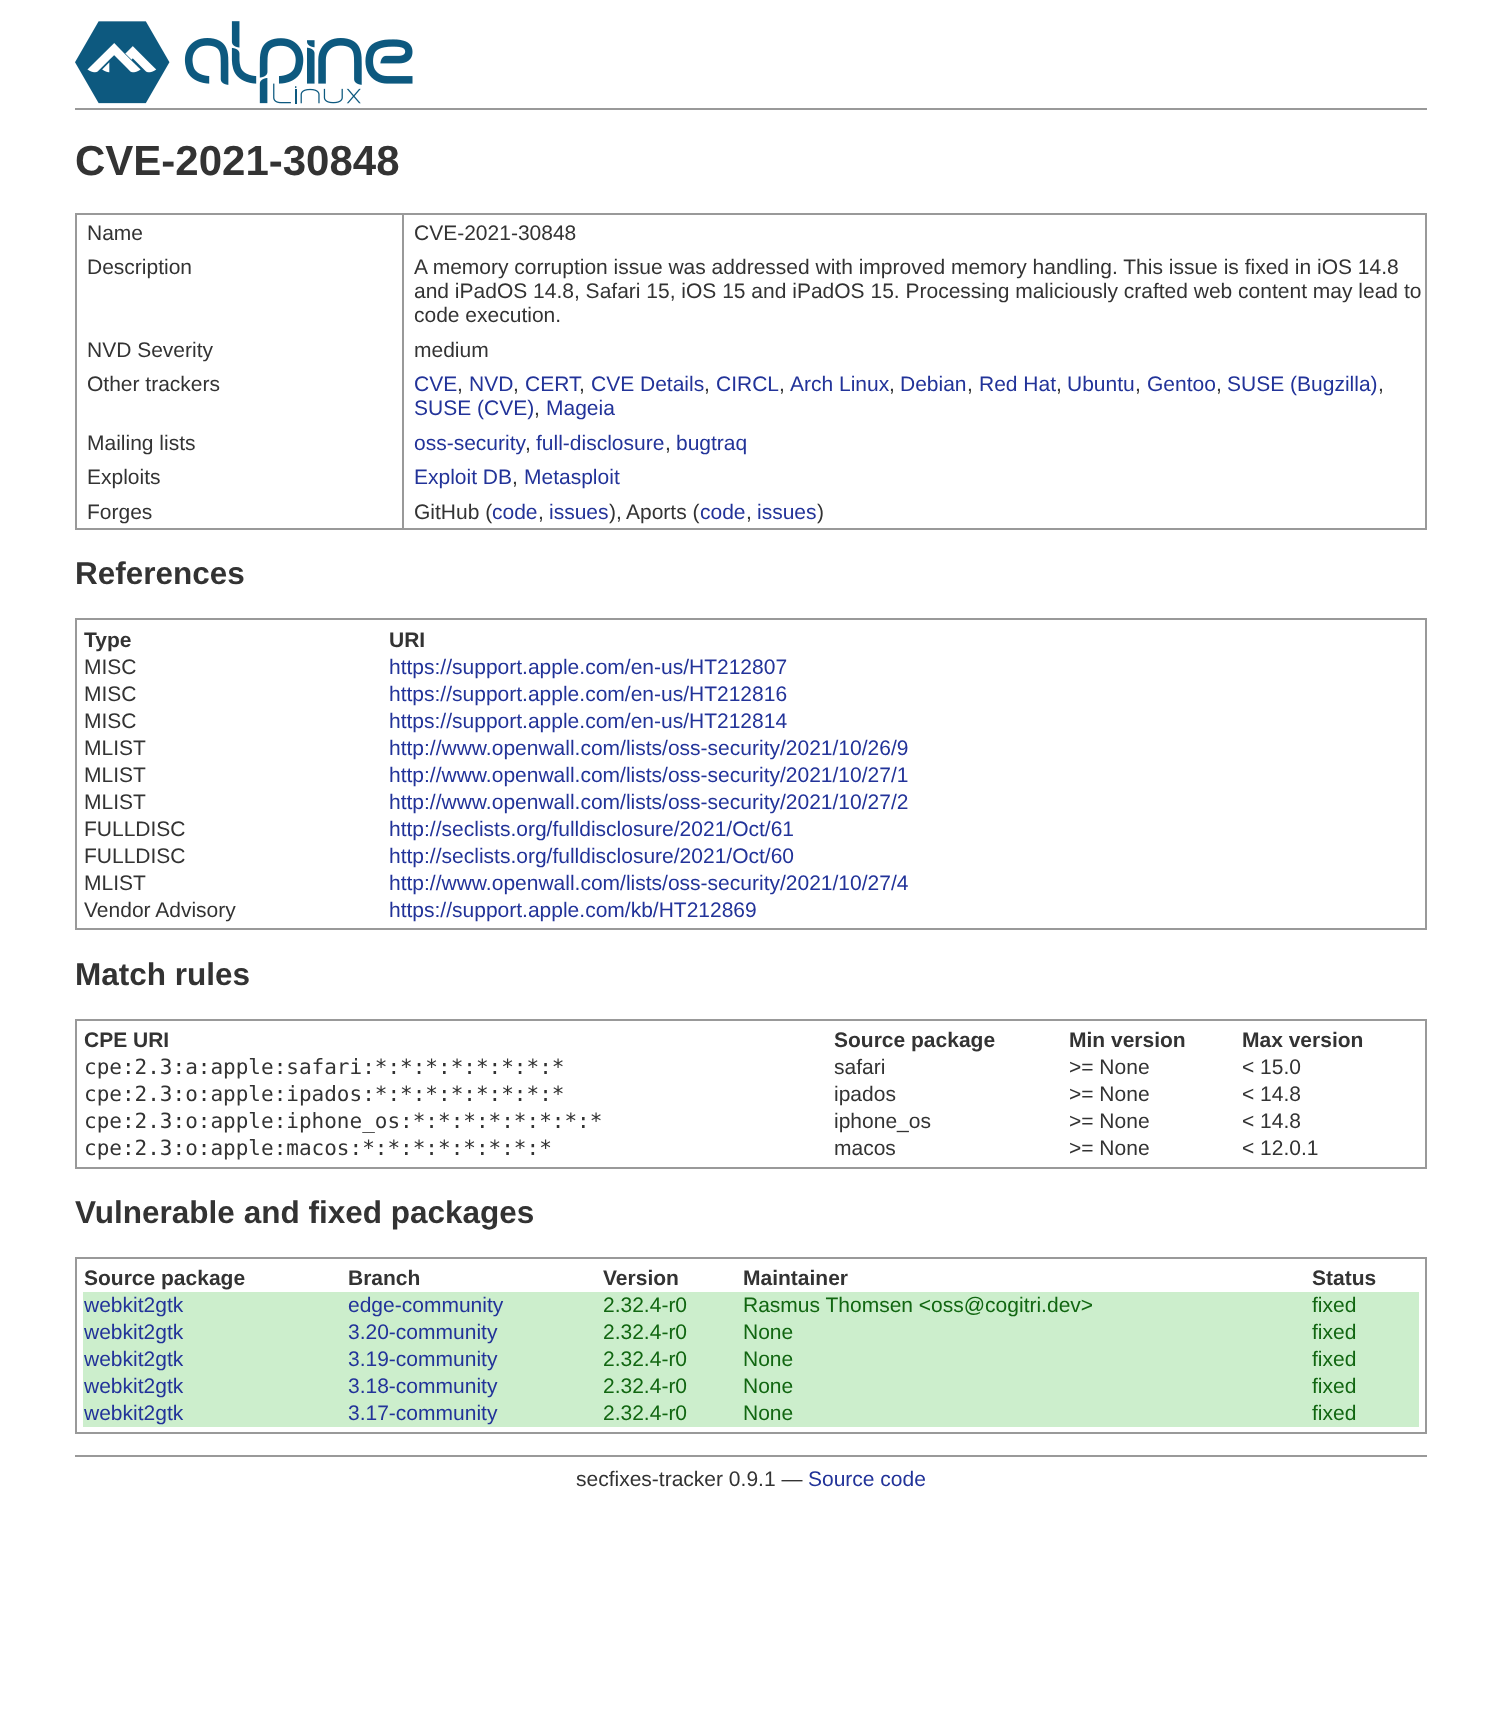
(async () => {
    const canvas = document.querySelector("canvas");
    canvas.width = 1501;
    canvas.height = 1734;
    const context = canvas.getContext("2d");
    context.miterLimit = 4;
    context.fontKerning = "normal";
    function write(s, x, y, font, color) {
        context.font = font;
        context.fillStyle = color;
        context.fillText(s, x, y);
    }
    function block(x, y, w, h, color) {
        context.fillStyle = color;
        context.fillRect(x, y, w, h);
    }
    async function photo(src, x, y, w, h) {
        const img = new Image();
        img.src = src;
        await img.decode();
        context.drawImage(img, x, y, w, h);
    }

    block(0, 0, 1501, 1734, "rgb(255, 255, 255)");
    block(75, 108, 1352, 2, "rgb(153, 153, 153)");
    await photo("media/1.png", 75, 21, 338, 83);
    write("CVE-2021-30848", 75, 175, "bold 42px Liberation Sans", "rgb(51, 51, 51)");
    context.strokeStyle = "rgb(153, 153, 153)";
    context.lineWidth = 2;
    context.strokeRect(76, 214, 1350, 315);
    write("Name", 87, 240, "21px Liberation Sans", "rgb(51, 51, 51)");
    block(402, 215, 2, 313, "rgb(153, 153, 153)");
    write("CVE-2021-30848", 414, 240, "21px Liberation Sans", "rgb(51, 51, 51)");
    write("Description", 87, 274, "21px Liberation Sans", "rgb(51, 51, 51)");
    write("A memory corruption issue was addressed with improved memory handling. This issue is fixed in iOS 14.8", 414, 274, "21px Liberation Sans", "rgb(51, 51, 51)");
    write("and iPadOS 14.8, Safari 15, iOS 15 and iPadOS 15. Processing maliciously crafted web content may lead to", 414, 298, "21px Liberation Sans", "rgb(51, 51, 51)");
    write("code execution.", 414, 322, "21px Liberation Sans", "rgb(51, 51, 51)");
    write("NVD Severity", 87, 357, "21px Liberation Sans", "rgb(51, 51, 51)");
    write("medium", 414, 357, "21px Liberation Sans", "rgb(51, 51, 51)");
    write("Other trackers", 87, 391, "21px Liberation Sans", "rgb(51, 51, 51)");
    write("CVE", 414, 391, "21px Liberation Sans", "rgb(34, 51, 153)");
    write(",", 457, 391, "21px Liberation Sans", "rgb(51, 51, 51)");
    write("NVD", 469, 391, "21px Liberation Sans", "rgb(34, 51, 153)");
    write(",", 513, 391, "21px Liberation Sans", "rgb(51, 51, 51)");
    write("CERT", 525, 391, "21px Liberation Sans", "rgb(34, 51, 153)");
    write(",", 579, 391, "21px Liberation Sans", "rgb(51, 51, 51)");
    write("CVE Details", 591, 391, "21px Liberation Sans", "rgb(34, 51, 153)");
    write(",", 704, 391, "21px Liberation Sans", "rgb(51, 51, 51)");
    write("CIRCL", 716, 391, "21px Liberation Sans", "rgb(34, 51, 153)");
    write(",", 779, 391, "21px Liberation Sans", "rgb(51, 51, 51)");
    write("Arch Linux", 790, 391, "21px Liberation Sans", "rgb(34, 51, 153)");
    write(",", 889, 391, "21px Liberation Sans", "rgb(51, 51, 51)");
    write("Debian", 900, 391, "21px Liberation Sans", "rgb(34, 51, 153)");
    write(",", 967, 391, "21px Liberation Sans", "rgb(51, 51, 51)");
    write("Red Hat", 979, 391, "21px Liberation Sans", "rgb(34, 51, 153)");
    write(",", 1056, 391, "21px Liberation Sans", "rgb(51, 51, 51)");
    write("Ubuntu", 1067, 391, "21px Liberation Sans", "rgb(34, 51, 153)");
    write(",", 1135, 391, "21px Liberation Sans", "rgb(51, 51, 51)");
    write("Gentoo", 1147, 391, "21px Liberation Sans", "rgb(34, 51, 153)");
    write(",", 1216, 391, "21px Liberation Sans", "rgb(51, 51, 51)");
    write("SUSE (Bugzilla)", 1227, 391, "21px Liberation Sans", "rgb(34, 51, 153)");
    write(",", 1378, 391, "21px Liberation Sans", "rgb(51, 51, 51)");
    write("SUSE (CVE)", 414, 415, "21px Liberation Sans", "rgb(34, 51, 153)");
    write(",", 534, 415, "21px Liberation Sans", "rgb(51, 51, 51)");
    write("Mageia", 546, 415, "21px Liberation Sans", "rgb(34, 51, 153)");
    write("Mailing lists", 87, 450, "21px Liberation Sans", "rgb(51, 51, 51)");
    write("oss-security", 414, 450, "21px Liberation Sans", "rgb(34, 51, 153)");
    write(",", 525, 450, "21px Liberation Sans", "rgb(51, 51, 51)");
    write("full-disclosure", 536, 450, "21px Liberation Sans", "rgb(34, 51, 153)");
    write(",", 665, 450, "21px Liberation Sans", "rgb(51, 51, 51)");
    write("bugtraq", 676, 450, "21px Liberation Sans", "rgb(34, 51, 153)");
    write("Exploits", 87, 484, "21px Liberation Sans", "rgb(51, 51, 51)");
    write("Exploit DB", 414, 484, "21px Liberation Sans", "rgb(34, 51, 153)");
    write(",", 512, 484, "21px Liberation Sans", "rgb(51, 51, 51)");
    write("Metasploit", 524, 484, "21px Liberation Sans", "rgb(34, 51, 153)");
    write("Forges", 87, 519, "21px Liberation Sans", "rgb(51, 51, 51)");
    write("GitHub (", 414, 519, "21px Liberation Sans", "rgb(51, 51, 51)");
    write("code", 492, 519, "21px Liberation Sans", "rgb(34, 51, 153)");
    write(",", 538, 519, "21px Liberation Sans", "rgb(51, 51, 51)");
    write("issues", 549, 519, "21px Liberation Sans", "rgb(34, 51, 153)");
    write("),", 609, 519, "21px Liberation Sans", "rgb(51, 51, 51)");
    write("Aports (", 626, 519, "21px Liberation Sans", "rgb(51, 51, 51)");
    write("code", 700, 519, "21px Liberation Sans", "rgb(34, 51, 153)");
    write(",", 746, 519, "21px Liberation Sans", "rgb(51, 51, 51)");
    write("issues", 757, 519, "21px Liberation Sans", "rgb(34, 51, 153)");
    write(")", 817, 519, "21px Liberation Sans", "rgb(51, 51, 51)");
    write("References", 75, 584, "bold 31.5px Liberation Sans", "rgb(51, 51, 51)");
    context.strokeRect(76, 619, 1350, 310);
    write("Type", 84, 647, "bold 21px Liberation Sans", "rgb(51, 51, 51)");
    write("URI", 389, 647, "bold 21px Liberation Sans", "rgb(51, 51, 51)");
    write("MISC", 84, 674, "21px Liberation Sans", "rgb(51, 51, 51)");
    write("https://support.apple.com/en-us/HT212807", 389, 674, "21px Liberation Sans", "rgb(34, 51, 153)");
    write("MISC", 84, 701, "21px Liberation Sans", "rgb(51, 51, 51)");
    write("https://support.apple.com/en-us/HT212816", 389, 701, "21px Liberation Sans", "rgb(34, 51, 153)");
    write("MISC", 84, 728, "21px Liberation Sans", "rgb(51, 51, 51)");
    write("https://support.apple.com/en-us/HT212814", 389, 728, "21px Liberation Sans", "rgb(34, 51, 153)");
    write("MLIST", 84, 755, "21px Liberation Sans", "rgb(51, 51, 51)");
    write("http://www.openwall.com/lists/oss-security/2021/10/26/9", 389, 755, "21px Liberation Sans", "rgb(34, 51, 153)");
    write("MLIST", 84, 782, "21px Liberation Sans", "rgb(51, 51, 51)");
    write("http://www.openwall.com/lists/oss-security/2021/10/27/1", 389, 782, "21px Liberation Sans", "rgb(34, 51, 153)");
    write("MLIST", 84, 809, "21px Liberation Sans", "rgb(51, 51, 51)");
    write("http://www.openwall.com/lists/oss-security/2021/10/27/2", 389, 809, "21px Liberation Sans", "rgb(34, 51, 153)");
    write("FULLDISC", 84, 836, "21px Liberation Sans", "rgb(51, 51, 51)");
    write("http://seclists.org/fulldisclosure/2021/Oct/61", 389, 836, "21px Liberation Sans", "rgb(34, 51, 153)");
    write("FULLDISC", 84, 863, "21px Liberation Sans", "rgb(51, 51, 51)");
    write("http://seclists.org/fulldisclosure/2021/Oct/60", 389, 863, "21px Liberation Sans", "rgb(34, 51, 153)");
    write("MLIST", 84, 890, "21px Liberation Sans", "rgb(51, 51, 51)");
    write("http://www.openwall.com/lists/oss-security/2021/10/27/4", 389, 890, "21px Liberation Sans", "rgb(34, 51, 153)");
    write("Vendor Advisory", 84, 917, "21px Liberation Sans", "rgb(51, 51, 51)");
    write("https://support.apple.com/kb/HT212869", 389, 917, "21px Liberation Sans", "rgb(34, 51, 153)");
    write("Match rules", 75, 985, "bold 31.5px Liberation Sans", "rgb(51, 51, 51)");
    context.strokeRect(76, 1020, 1350, 148);
    write("CPE URI", 84, 1047, "bold 21px Liberation Sans", "rgb(51, 51, 51)");
    write("Source package", 834, 1047, "bold 21px Liberation Sans", "rgb(51, 51, 51)");
    write("Min version", 1069, 1047, "bold 21px Liberation Sans", "rgb(51, 51, 51)");
    write("Max version", 1242, 1047, "bold 21px Liberation Sans", "rgb(51, 51, 51)");
    write("cpe:2.3:a:apple:safari:*:*:*:*:*:*:*:*", 84, 1074, "21px DejaVu Sans Mono", "rgb(51, 51, 51)");
    write("safari", 834, 1074, "21px Liberation Sans", "rgb(51, 51, 51)");
    write(">= None", 1069, 1074, "21px Liberation Sans", "rgb(51, 51, 51)");
    write("< 15.0", 1242, 1074, "21px Liberation Sans", "rgb(51, 51, 51)");
    write("cpe:2.3:o:apple:ipados:*:*:*:*:*:*:*:*", 84, 1101, "21px DejaVu Sans Mono", "rgb(51, 51, 51)");
    write("ipados", 834, 1101, "21px Liberation Sans", "rgb(51, 51, 51)");
    write(">= None", 1069, 1101, "21px Liberation Sans", "rgb(51, 51, 51)");
    write("< 14.8", 1242, 1101, "21px Liberation Sans", "rgb(51, 51, 51)");
    write("cpe:2.3:o:apple:iphone_os:*:*:*:*:*:*:*:*", 84, 1128, "21px DejaVu Sans Mono", "rgb(51, 51, 51)");
    write("iphone_os", 834, 1128, "21px Liberation Sans", "rgb(51, 51, 51)");
    write(">= None", 1069, 1128, "21px Liberation Sans", "rgb(51, 51, 51)");
    write("< 14.8", 1242, 1128, "21px Liberation Sans", "rgb(51, 51, 51)");
    write("cpe:2.3:o:apple:macos:*:*:*:*:*:*:*:*", 84, 1155, "21px DejaVu Sans Mono", "rgb(51, 51, 51)");
    write("macos", 834, 1155, "21px Liberation Sans", "rgb(51, 51, 51)");
    write(">= None", 1069, 1155, "21px Liberation Sans", "rgb(51, 51, 51)");
    write("< 12.0.1", 1242, 1155, "21px Liberation Sans", "rgb(51, 51, 51)");
    write("Vulnerable and fixed packages", 75, 1223, "bold 31.5px Liberation Sans", "rgb(51, 51, 51)");
    context.strokeRect(76, 1258, 1350, 175);
    write("Source package", 84, 1285, "bold 21px Liberation Sans", "rgb(51, 51, 51)");
    write("Branch", 348, 1285, "bold 21px Liberation Sans", "rgb(51, 51, 51)");
    write("Version", 603, 1285, "bold 21px Liberation Sans", "rgb(51, 51, 51)");
    write("Maintainer", 743, 1285, "bold 21px Liberation Sans", "rgb(51, 51, 51)");
    write("Status", 1312, 1285, "bold 21px Liberation Sans", "rgb(51, 51, 51)");
    block(83, 1292, 1336, 135, "rgb(204, 238, 204)");
    write("webkit2gtk", 84, 1312, "21px Liberation Sans", "rgb(34, 51, 153)");
    write("edge-community", 348, 1312, "21px Liberation Sans", "rgb(34, 51, 153)");
    write("2.32.4-r0", 603, 1312, "21px Liberation Sans", "rgb(17, 102, 17)");
    write("Rasmus Thomsen <oss@cogitri.dev>", 743, 1312, "21px Liberation Sans", "rgb(17, 102, 17)");
    write("fixed", 1312, 1312, "21px Liberation Sans", "rgb(17, 102, 17)");
    write("webkit2gtk", 84, 1339, "21px Liberation Sans", "rgb(34, 51, 153)");
    write("3.20-community", 348, 1339, "21px Liberation Sans", "rgb(34, 51, 153)");
    write("2.32.4-r0", 603, 1339, "21px Liberation Sans", "rgb(17, 102, 17)");
    write("None", 743, 1339, "21px Liberation Sans", "rgb(17, 102, 17)");
    write("fixed", 1312, 1339, "21px Liberation Sans", "rgb(17, 102, 17)");
    write("webkit2gtk", 84, 1366, "21px Liberation Sans", "rgb(34, 51, 153)");
    write("3.19-community", 348, 1366, "21px Liberation Sans", "rgb(34, 51, 153)");
    write("2.32.4-r0", 603, 1366, "21px Liberation Sans", "rgb(17, 102, 17)");
    write("None", 743, 1366, "21px Liberation Sans", "rgb(17, 102, 17)");
    write("fixed", 1312, 1366, "21px Liberation Sans", "rgb(17, 102, 17)");
    write("webkit2gtk", 84, 1393, "21px Liberation Sans", "rgb(34, 51, 153)");
    write("3.18-community", 348, 1393, "21px Liberation Sans", "rgb(34, 51, 153)");
    write("2.32.4-r0", 603, 1393, "21px Liberation Sans", "rgb(17, 102, 17)");
    write("None", 743, 1393, "21px Liberation Sans", "rgb(17, 102, 17)");
    write("fixed", 1312, 1393, "21px Liberation Sans", "rgb(17, 102, 17)");
    write("webkit2gtk", 84, 1420, "21px Liberation Sans", "rgb(34, 51, 153)");
    write("3.17-community", 348, 1420, "21px Liberation Sans", "rgb(34, 51, 153)");
    write("2.32.4-r0", 603, 1420, "21px Liberation Sans", "rgb(17, 102, 17)");
    write("None", 743, 1420, "21px Liberation Sans", "rgb(17, 102, 17)");
    write("fixed", 1312, 1420, "21px Liberation Sans", "rgb(17, 102, 17)");
    block(75, 1455, 1352, 2, "rgb(153, 153, 153)");
    write("secfixes-tracker 0.9.1 —", 576, 1486, "21px Liberation Sans", "rgb(51, 51, 51)");
    write("Source code", 808, 1486, "21px Liberation Sans", "rgb(34, 51, 153)");
})();
